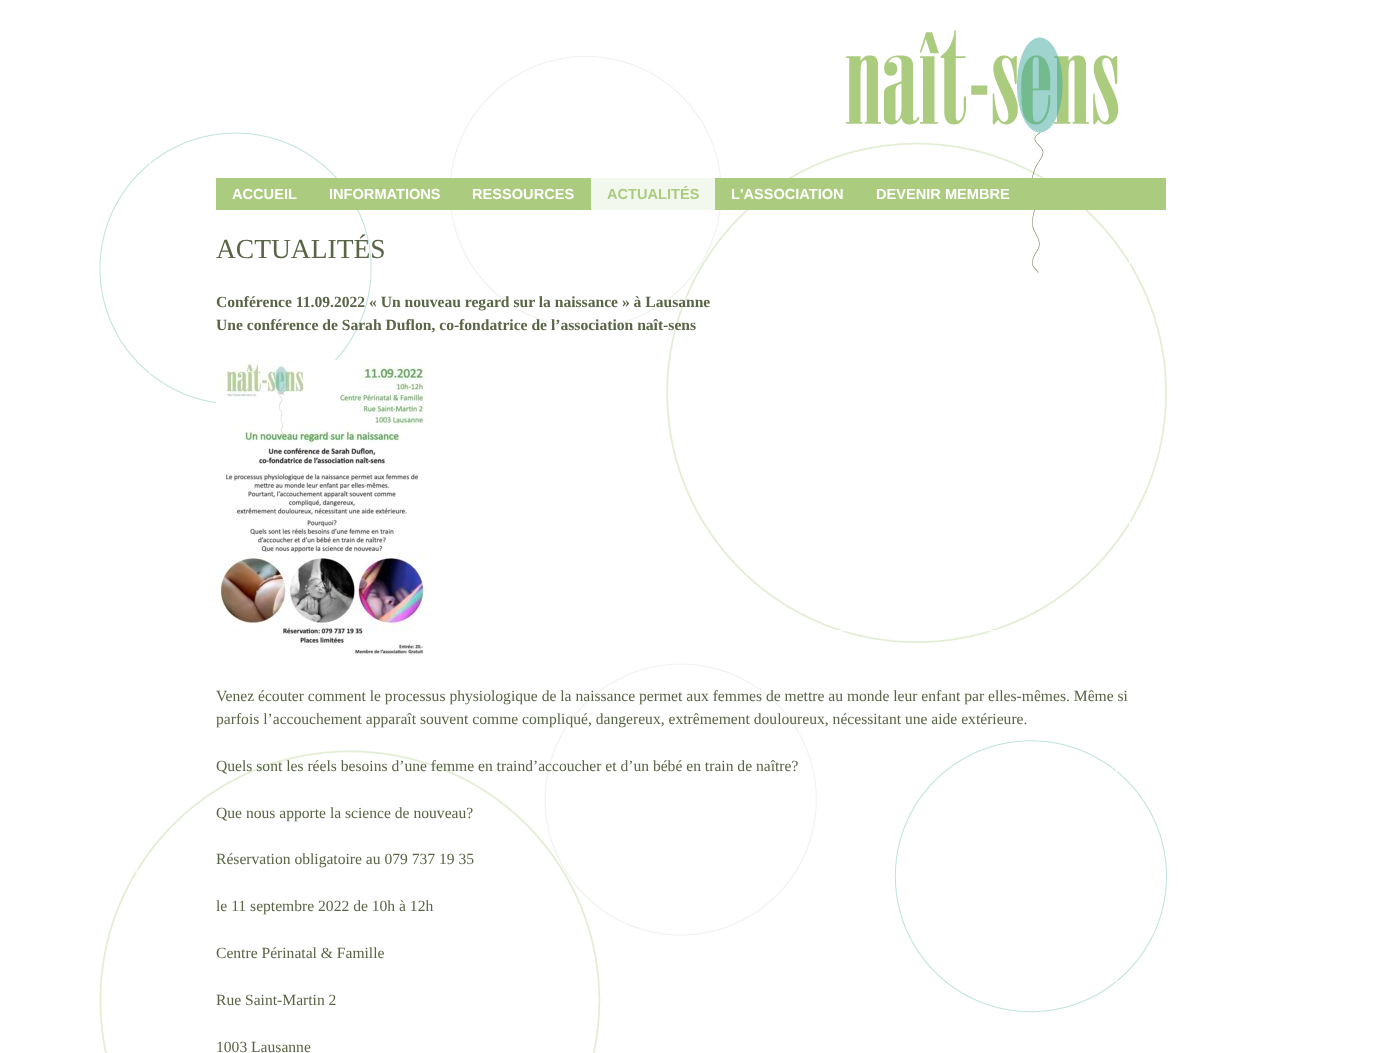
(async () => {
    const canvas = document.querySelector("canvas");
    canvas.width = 1381;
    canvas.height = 1053;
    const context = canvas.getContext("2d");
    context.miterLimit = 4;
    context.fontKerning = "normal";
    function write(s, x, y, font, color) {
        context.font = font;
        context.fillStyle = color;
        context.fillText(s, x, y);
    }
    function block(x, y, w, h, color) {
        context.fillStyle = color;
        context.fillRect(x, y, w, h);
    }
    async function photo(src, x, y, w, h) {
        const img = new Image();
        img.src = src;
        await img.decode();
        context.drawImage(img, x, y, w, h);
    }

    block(0, 0, 1381, 1053, "rgb(255, 255, 255)");
    await photo("media/1.png", 99, 56, 1068, 997);
    await photo("media/2.png", 846, 30, 273, 243);
    block(216, 178, 950, 32, "rgb(171, 203, 126)");
    write("ACCUEIL", 232, 199, "bold 14.6px Liberation Sans", "rgb(255, 255, 255)");
    write("INFORMATIONS", 329, 199, "bold 14.6px Liberation Sans", "rgb(255, 255, 255)");
    write("RESSOURCES", 472, 199, "bold 14.6px Liberation Sans", "rgb(255, 255, 255)");
    block(591, 178, 124, 32, "rgb(243, 248, 238)");
    write("ACTUALITÉS", 607, 199, "bold 14.6px Liberation Sans", "rgb(171, 203, 126)");
    write("L'ASSOCIATION", 731, 199, "bold 14.6px Liberation Sans", "rgb(255, 255, 255)");
    write("DEVENIR MEMBRE", 876, 199, "bold 14.6px Liberation Sans", "rgb(255, 255, 255)");
    write("ACTUALITÉS", 216, 258, "27.5px Liberation Serif", "rgb(90, 100, 70)");
    write("Conférence 11.09.2022 « Un nouveau regard sur la naissance » à Lausanne", 216, 307, "bold 15.6px Liberation Serif", "rgb(90, 100, 70)");
    write("Une conférence de Sarah Duflon, co-fondatrice de l’association naît-sens", 216, 330, "bold 15.6px Liberation Serif", "rgb(90, 100, 70)");
    await photo("media/3.png", 216, 360, 209, 296);
    write("Venez écouter comment le processus physiologique de la naissance permet aux femmes de mettre au monde leur enfant par elles-mêmes. Même si", 216, 701, "15.6px Liberation Serif", "rgb(90, 100, 70)");
    write("parfois l’accouchement apparaît souvent comme compliqué, dangereux, extrêmement douloureux, nécessitant une aide extérieure.", 216, 724, "15.6px Liberation Serif", "rgb(90, 100, 70)");
    write("Quels sont les réels besoins d’une femme en traind’accoucher et d’un bébé en train de naître?", 216, 771, "15.6px Liberation Serif", "rgb(90, 100, 70)");
    write("Que nous apporte la science de nouveau?", 216, 818, "15.6px Liberation Serif", "rgb(90, 100, 70)");
    write("Réservation obligatoire au 079 737 19 35", 216, 864, "15.6px Liberation Serif", "rgb(90, 100, 70)");
    write("le 11 septembre 2022 de 10h à 12h", 216, 911, "15.6px Liberation Serif", "rgb(90, 100, 70)");
    write("Centre Périnatal & Famille", 216, 958, "15.6px Liberation Serif", "rgb(90, 100, 70)");
    write("Rue Saint-Martin 2", 216, 1005, "15.6px Liberation Serif", "rgb(90, 100, 70)");
    write("1003 Lausanne", 216, 1052, "15.6px Liberation Serif", "rgb(90, 100, 70)");
})();
